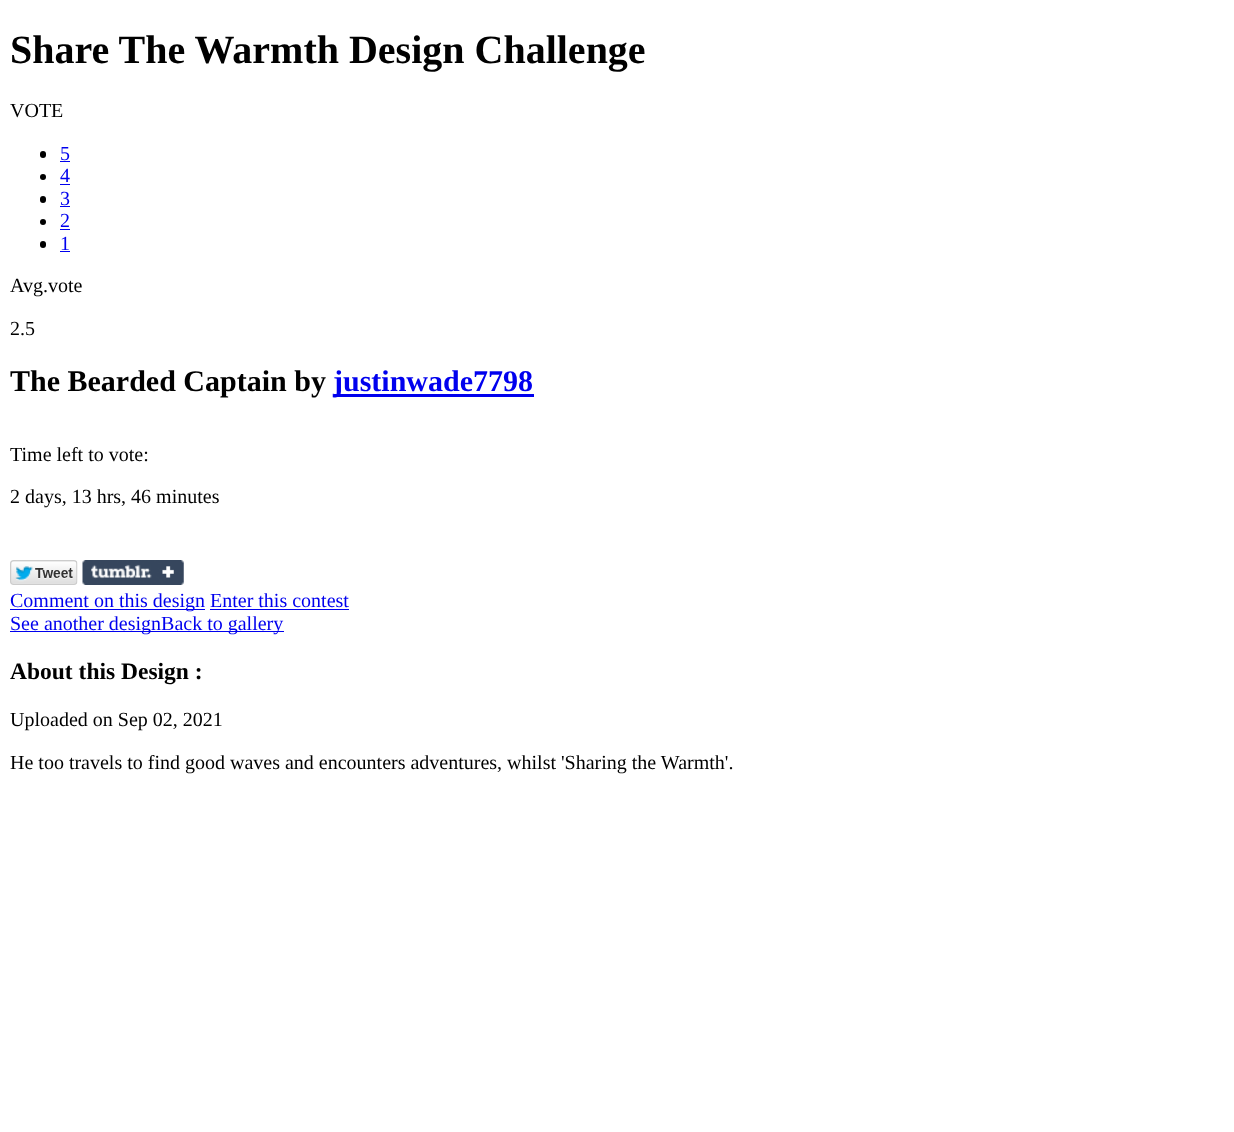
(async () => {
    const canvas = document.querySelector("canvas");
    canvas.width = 1234;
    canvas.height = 1132;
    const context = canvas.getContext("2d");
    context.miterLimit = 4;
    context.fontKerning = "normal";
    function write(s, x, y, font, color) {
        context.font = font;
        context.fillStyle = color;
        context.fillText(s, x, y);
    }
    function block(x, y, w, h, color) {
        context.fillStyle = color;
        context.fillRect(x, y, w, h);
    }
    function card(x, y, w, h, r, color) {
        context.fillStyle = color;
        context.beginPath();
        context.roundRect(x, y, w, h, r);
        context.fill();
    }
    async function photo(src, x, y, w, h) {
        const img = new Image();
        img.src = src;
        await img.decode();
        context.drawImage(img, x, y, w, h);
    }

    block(0, 0, 1234, 1132, "rgb(255, 255, 255)");
    write("Share The Warmth Design Challenge", 10, 63, "bold 40px Liberation Serif", "rgb(0, 0, 0)");
    write("VOTE", 10, 117, "20px Liberation Serif", "rgb(0, 0, 0)");
    card(40, 151, 6, 7, 3, "rgb(0, 0, 0)");
    write("5", 60, 160, "20px Liberation Serif", "rgb(0, 0, 238)");
    block(60, 161, 10, 1, "rgb(0, 0, 238)");
    context.fillStyle = "rgb(0, 0, 0)";
    context.beginPath();
    context.arc(43, 177, 3, 0, Math.PI * 2);
    context.fill();
    write("4", 60, 182, "20px Liberation Serif", "rgb(0, 0, 238)");
    block(60, 184, 10, 1, "rgb(0, 0, 238)");
    card(40, 196, 6, 7, 3, "rgb(0, 0, 0)");
    write("3", 60, 205, "20px Liberation Serif", "rgb(0, 0, 238)");
    block(60, 206, 10, 1, "rgb(0, 0, 238)");
    context.fillStyle = "rgb(0, 0, 0)";
    context.beginPath();
    context.arc(43, 222, 3, 0, Math.PI * 2);
    context.fill();
    write("2", 60, 227, "20px Liberation Serif", "rgb(0, 0, 238)");
    block(60, 229, 10, 1, "rgb(0, 0, 238)");
    card(40, 241, 6, 7, 3, "rgb(0, 0, 0)");
    write("1", 60, 250, "20px Liberation Serif", "rgb(0, 0, 238)");
    block(60, 251, 10, 1, "rgb(0, 0, 238)");
    write("Avg.vote", 10, 292, "20px Liberation Serif", "rgb(0, 0, 0)");
    write("2.5", 10, 335, "20px Liberation Serif", "rgb(0, 0, 0)");
    write("The Bearded Captain by", 10, 391, "bold 30px Liberation Serif", "rgb(0, 0, 0)");
    block(334, 394, 200, 3, "rgb(0, 0, 238)");
    write("justinwade7798", 333, 391, "bold 30px Liberation Serif", "rgb(0, 0, 238)");
    write("Time left to vote:", 10, 461, "20px Liberation Serif", "rgb(0, 0, 0)");
    write("2 days, 13 hrs, 46 minutes", 10, 503, "20px Liberation Serif", "rgb(0, 0, 0)");
    await photo("media/1.png", 10, 560, 68, 25);
    await photo("media/2.png", 82, 560, 102, 25);
    block(10, 609, 195, 1, "rgb(0, 0, 238)");
    write("Comment on this design Enter this contest", 10, 607, "20px Liberation Serif", "rgb(0, 0, 238)");
    block(210, 609, 139, 1, "rgb(0, 0, 238)");
    block(10, 631, 274, 1, "rgb(0, 0, 238)");
    write("See another designBack to gallery", 10, 630, "20px Liberation Serif", "rgb(0, 0, 238)");
    write("About this Design :", 10, 679, "bold 23.5px Liberation Serif", "rgb(0, 0, 0)");
    write("Uploaded on Sep 02, 2021", 10, 726, "20px Liberation Serif", "rgb(0, 0, 0)");
    write("He too travels to find good waves and encounters adventures, whilst 'Sharing the Warmth'.", 10, 769, "20px Liberation Serif", "rgb(0, 0, 0)");
})();
